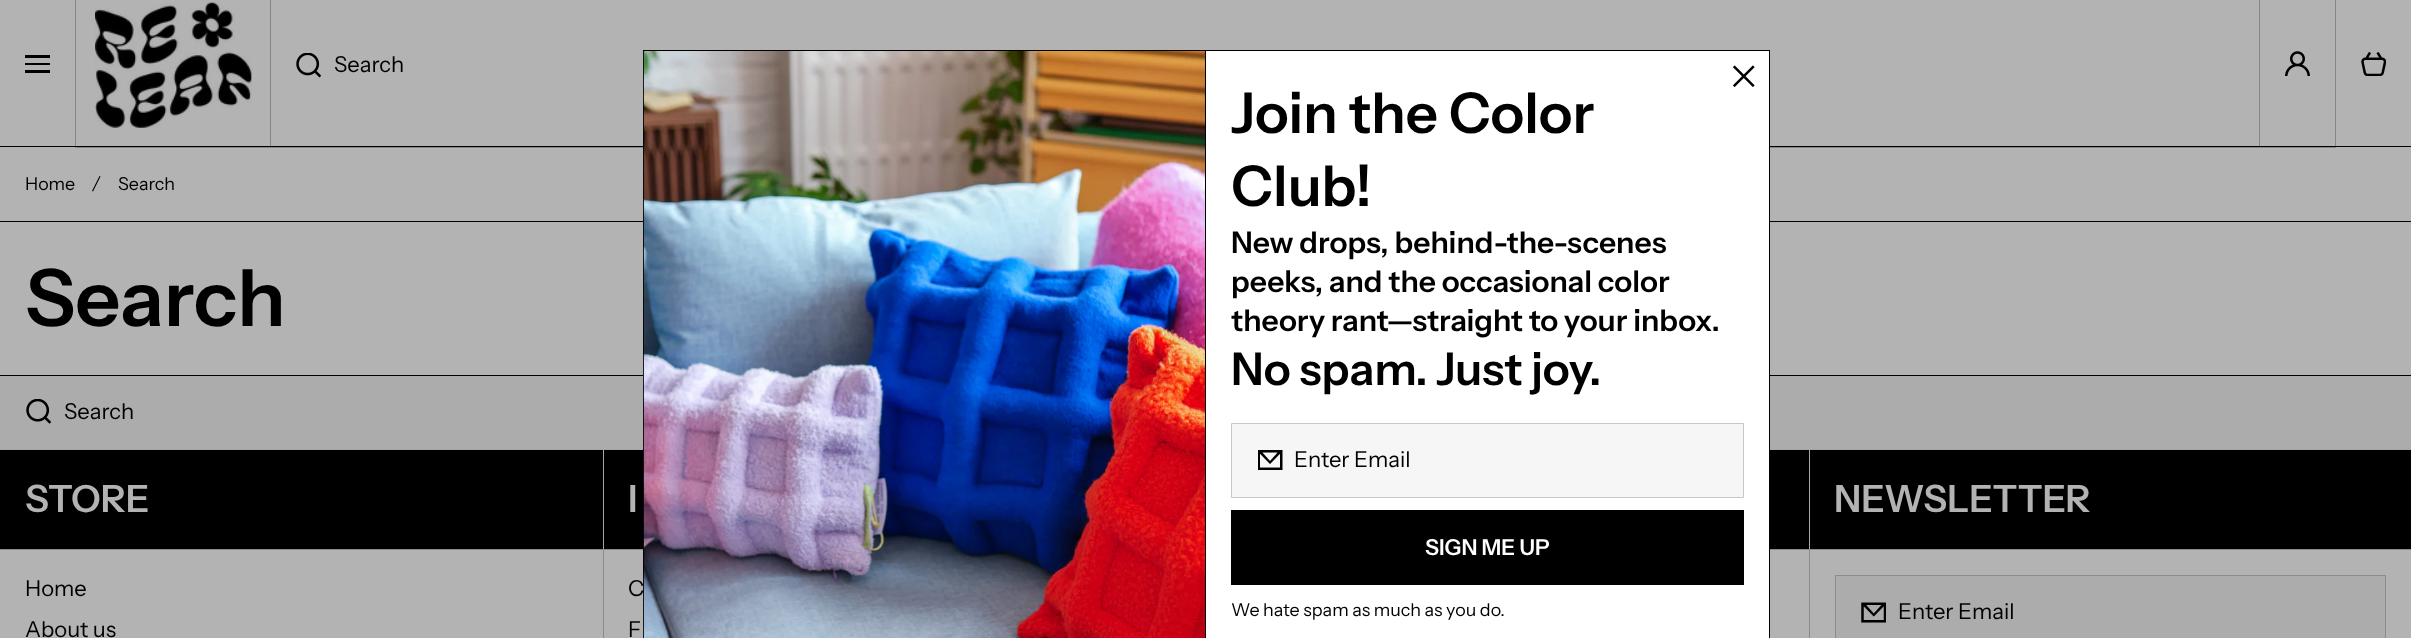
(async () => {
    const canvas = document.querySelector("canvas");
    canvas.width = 2411;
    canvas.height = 638;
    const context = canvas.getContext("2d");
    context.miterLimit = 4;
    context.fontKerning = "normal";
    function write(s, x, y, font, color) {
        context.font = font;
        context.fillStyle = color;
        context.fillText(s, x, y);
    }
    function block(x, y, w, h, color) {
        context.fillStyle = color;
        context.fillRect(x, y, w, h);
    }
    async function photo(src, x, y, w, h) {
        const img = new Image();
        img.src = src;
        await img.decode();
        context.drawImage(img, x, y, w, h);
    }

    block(0, 0, 2411, 638, "rgb(179, 179, 179)");
    block(25, 55, 25, 3, "rgb(0, 0, 0)");
    block(25, 63, 25, 2, "rgb(0, 0, 0)");
    block(25, 70, 25, 3, "rgb(0, 0, 0)");
    context.strokeStyle = "rgb(134, 134, 134)";
    context.strokeRect(75.5, -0.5, 195, 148);
    await photo("media/1.png", 95, 2, 157, 126);
    context.strokeRect(270.5, -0.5, 1989, 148);
    await photo("media/2.png", 296, 53, 25, 25);
    write("Search", 334, 72, "22px Instrument Sans", "rgb(0, 0, 0)");
    context.strokeRect(2259.5, -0.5, 76, 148);
    await photo("media/3.png", 2285, 51, 25, 25);
    await photo("media/4.png", 2361, 51, 25, 25);
    block(0, 146, 2411, 1, "rgb(0, 0, 0)");
    write("Home", 25, 190, "17.9px Instrument Sans", "rgb(0, 0, 0)");
    context.beginPath();
    context.moveTo(92, 191);
    context.lineTo(99.5, 176);
    context.lineTo(100.5, 176.5);
    context.lineTo(93, 191.5);
    context.closePath();
    context.fill("evenodd");
    write("Search", 118, 190, "17.9px Instrument Sans", "rgb(0, 0, 0)");
    block(0, 221, 2411, 1, "rgb(0, 0, 0)");
    write("Search", 25, 326, "600 79px Instrument Sans", "rgb(0, 0, 0)");
    block(0, 376, 2411, 73, "rgb(172, 172, 172)");
    block(0, 375, 2411, 1, "rgb(0, 0, 0)");
    await photo("media/5.png", 26, 399, 25, 25);
    write("Search", 64, 419, "22px Instrument Sans", "rgb(0, 0, 0)");
    block(0, 449, 604, 1, "rgb(166, 166, 166)");
    block(604, 450, 39, 99, "rgb(0, 0, 0)");
    block(0, 549, 604, 1, "rgb(139, 139, 139)");
    context.strokeStyle = "rgb(166, 166, 166)";
    context.strokeRect(603.5, 449.5, 602, 100);
    block(1770, 450, 39, 99, "rgb(0, 0, 0)");
    context.strokeStyle = "rgb(139, 139, 139)";
    context.strokeRect(603.5, 549.5, 602, 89);
    context.strokeStyle = "rgb(166, 166, 166)";
    context.strokeRect(1205.5, 449.5, 604, 100);
    context.strokeStyle = "rgb(139, 139, 139)";
    context.strokeRect(1205.5, 549.5, 604, 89);
    block(1206, 51, 563, 587, "rgb(255, 255, 255)");
    context.strokeStyle = "rgb(0, 0, 0)";
    context.strokeRect(643.5, 50.5, 1126, 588);
    block(1205, 51, 1, 587, "rgb(0, 0, 0)");
    write("C", 628, 596, "22px Instrument Sans", "rgb(0, 0, 0)");
    await photo("media/6.png", 643, 51, 562, 587);
    await photo("media/7.png", 1733, 65, 22, 22);
    write("Join the Color", 1231, 133, "600 56.25px Instrument Sans", "rgb(0, 0, 0)");
    write("Club!", 1231, 206, "600 56.25px Instrument Sans", "rgb(0, 0, 0)");
    write("New drops, behind-the-scenes", 1231, 253, "600 30px Instrument Sans", "rgb(0, 0, 0)");
    write("peeks, and the occasional color", 1231, 292, "600 30px Instrument Sans", "rgb(0, 0, 0)");
    write("theory rant—straight to your inbox.", 1231, 331, "600 30px Instrument Sans", "rgb(0, 0, 0)");
    write("No spam. Just joy.", 1231, 385, "600 45px Instrument Sans", "rgb(0, 0, 0)");
    context.fillStyle = "rgb(246, 246, 246)";
    context.beginPath();
    context.rect(1231.5, 423.5, 512, 74);
    context.fill();
    context.strokeStyle = "rgb(199, 199, 199)";
    context.stroke();
    await photo("media/8.png", 1258, 450, 25, 20);
    write("Enter Email", 1294, 467, "22px Instrument Sans", "rgb(0, 0, 0)");
    block(1231, 510, 513, 75, "rgb(0, 0, 0)");
    write("SIGN ME UP", 1425, 555, "600 22px Instrument Sans", "rgb(255, 255, 255)");
    write("We hate spam as much as you do.", 1231, 616, "17.9px Instrument Sans", "rgb(0, 0, 0)");
    block(0, 450, 603, 99, "rgb(0, 0, 0)");
    write("STORE", 25, 512, "600 37.5px Instrument Sans", "rgb(179, 179, 179)");
    write("I", 628, 512, "600 37.5px Instrument Sans", "rgb(179, 179, 179)");
    block(1810, 450, 601, 99, "rgb(0, 0, 0)");
    block(1809, 449, 602, 1, "rgb(166, 166, 166)");
    write("NEWSLETTER", 1834, 512, "600 37.5px Instrument Sans", "rgb(179, 179, 179)");
    block(1809, 549, 602, 1, "rgb(139, 139, 139)");
    context.fillStyle = "rgb(172, 172, 172)";
    context.beginPath();
    context.rect(1835.5, 575.5, 550, 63);
    context.fill();
    context.strokeStyle = "rgb(139, 139, 139)";
    context.stroke();
    await photo("media/9.png", 1861, 602, 25, 21);
    write("Enter Email", 1898, 619, "22px Instrument Sans", "rgb(0, 0, 0)");
    write("Home", 25, 596, "22px Instrument Sans", "rgb(0, 0, 0)");
    write("About us", 25, 637, "22px Instrument Sans", "rgb(0, 0, 0)");
    write("F", 628, 637, "22px Instrument Sans", "rgb(0, 0, 0)");
})();
